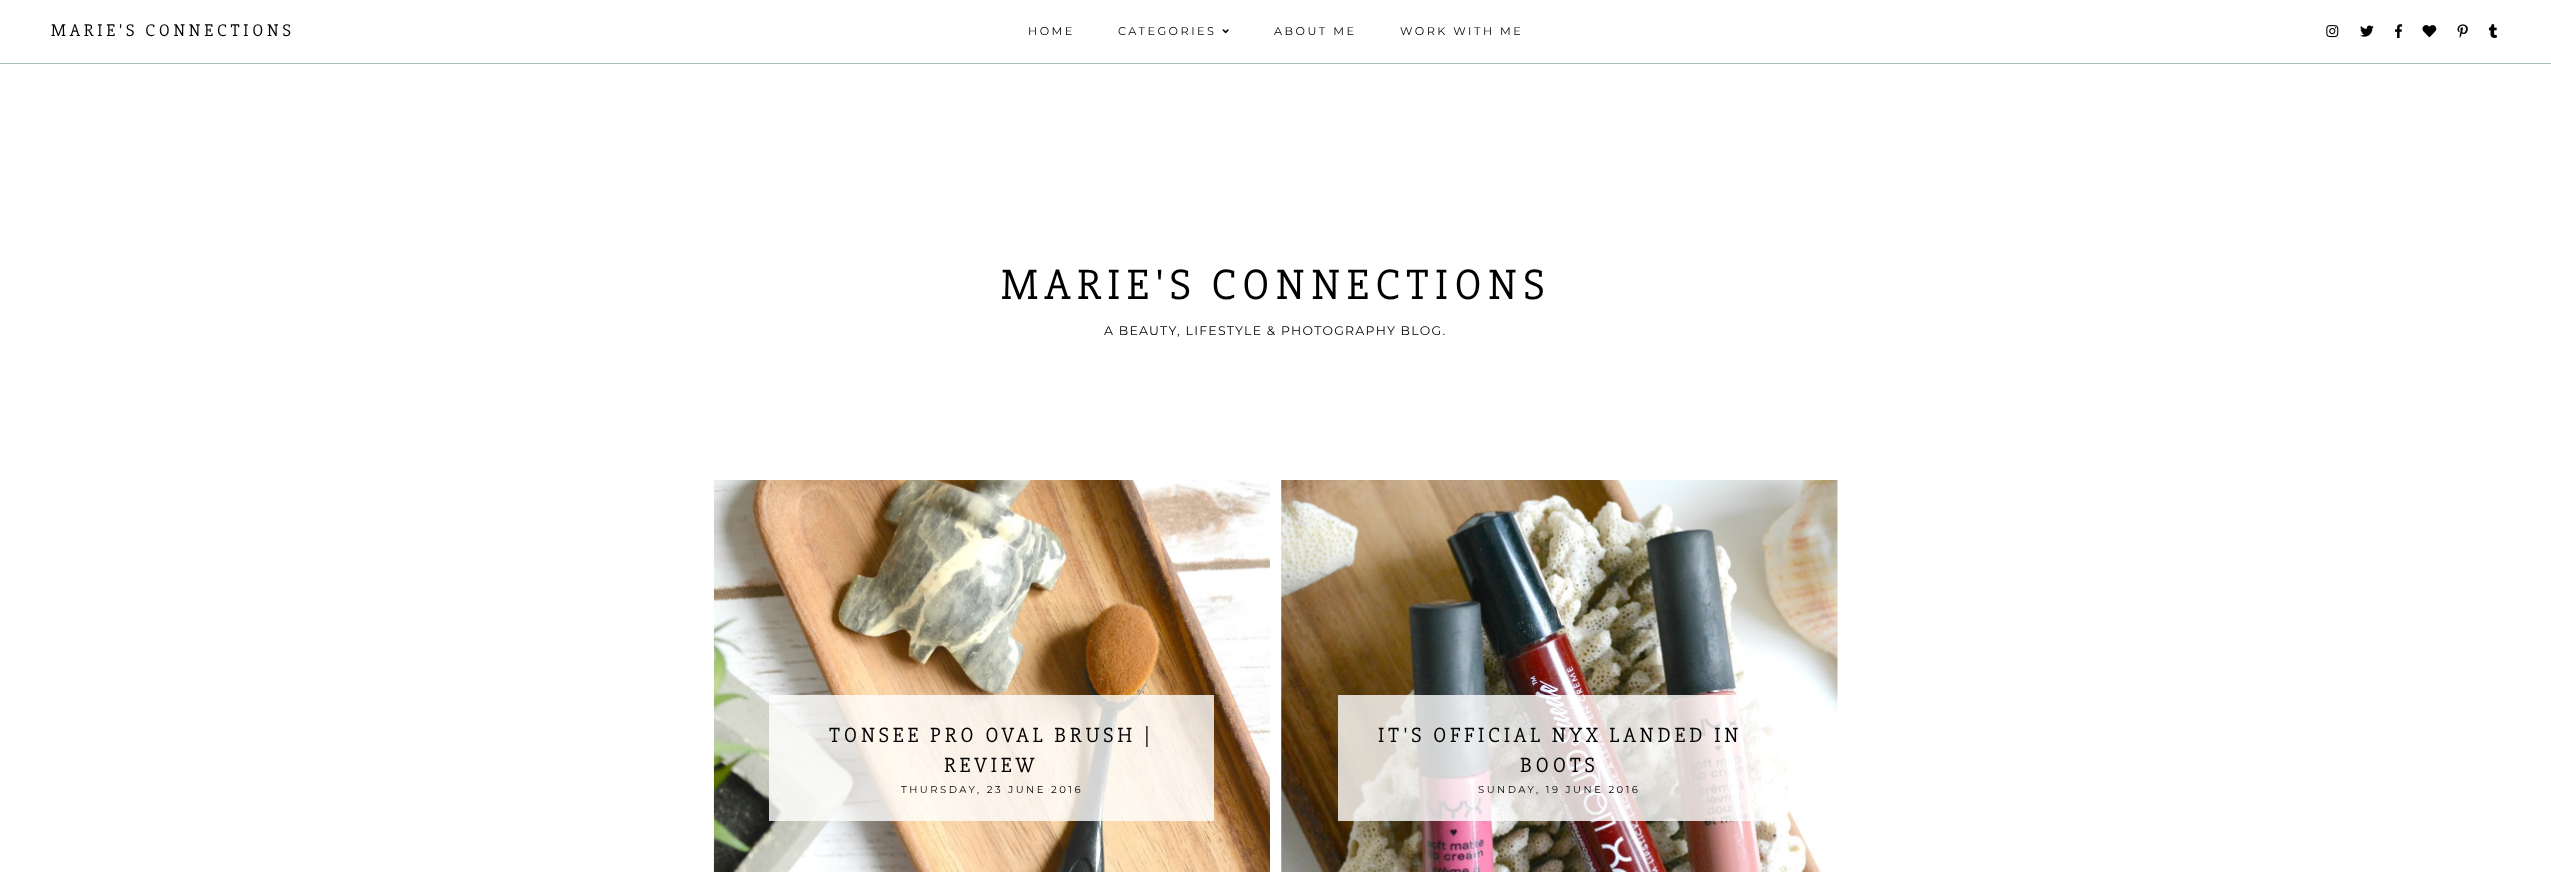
(async () => {
    const canvas = document.querySelector("canvas");
    canvas.width = 2551;
    canvas.height = 872;
    const context = canvas.getContext("2d");
    context.miterLimit = 4;
    context.fontKerning = "normal";
    function write(s, x, y, font, color) {
        context.font = font;
        context.fillStyle = color;
        context.fillText(s, x, y);
    }
    function block(x, y, w, h, color) {
        context.fillStyle = color;
        context.fillRect(x, y, w, h);
    }
    async function photo(src, x, y, w, h) {
        const img = new Image();
        img.src = src;
        await img.decode();
        context.drawImage(img, x, y, w, h);
    }

    block(0, 0, 2551, 872, "rgb(255, 255, 255)");
    block(0, 63, 2551, 1, "rgb(173, 194, 181)");
    context.letterSpacing = "3.75px";
    write("MARIE'S CONNECTIONS", 51, 36, "17.5px 'Slabo 27px'", "rgb(0, 0, 0)");
    context.letterSpacing = "2.5px";
    write("HOME", 1028, 35, "11.25px Montserrat", "rgb(0, 0, 0)");
    write("CATEGORIES", 1118, 35, "11.25px Montserrat", "rgb(0, 0, 0)");
    await photo("media/1.png", 1222, 29, 7, 5);
    write("ABOUT ME", 1274, 35, "11.25px Montserrat", "rgb(0, 0, 0)");
    write("WORK WITH ME", 1400, 35, "11.25px Montserrat", "rgb(0, 0, 0)");
    await photo("media/2.png", 2326, 25, 13, 13);
    await photo("media/3.png", 2360, 25, 14, 12);
    await photo("media/4.png", 2395, 24, 8, 14);
    await photo("media/5.png", 2422, 25, 15, 13);
    await photo("media/6.png", 2457, 24, 11, 14);
    await photo("media/7.png", 2488, 24, 10, 14);
    context.letterSpacing = "6.25px";
    write("MARIE'S CONNECTIONS", 1001, 299, "43.75px 'Slabo 27px'", "rgb(0, 0, 0)");
    context.letterSpacing = "1.25px";
    write("A BEAUTY, LIFESTYLE & PHOTOGRAPHY BLOG.", 1104, 335, "12.5px Montserrat", "rgb(0, 0, 0)");
    await photo("media/8.png", 713, 480, 557, 392);
    block(769, 695, 445, 126, "rgba(255, 255, 255, 0.8)");
    context.letterSpacing = "3.75px";
    write("TONSEE PRO OVAL BRUSH |", 829, 742, "21.25px 'Slabo 27px'", "rgb(0, 0, 0)");
    write("REVIEW", 944, 772, "21.25px 'Slabo 27px'", "rgb(0, 0, 0)");
    context.letterSpacing = "2.5px";
    write("THURSDAY, 23 JUNE 2016", 901, 793, "10px Montserrat", "rgb(0, 0, 0)");
    await photo("media/9.png", 1281, 480, 557, 392);
    block(1338, 695, 445, 126, "rgba(255, 255, 255, 0.8)");
    context.letterSpacing = "3.75px";
    write("IT'S OFFICIAL NYX LANDED IN", 1378, 742, "21.25px 'Slabo 27px'", "rgb(0, 0, 0)");
    write("BOOTS", 1520, 772, "21.25px 'Slabo 27px'", "rgb(0, 0, 0)");
    context.letterSpacing = "2.5px";
    write("SUNDAY, 19 JUNE 2016", 1478, 793, "10px Montserrat", "rgb(0, 0, 0)");
})();
